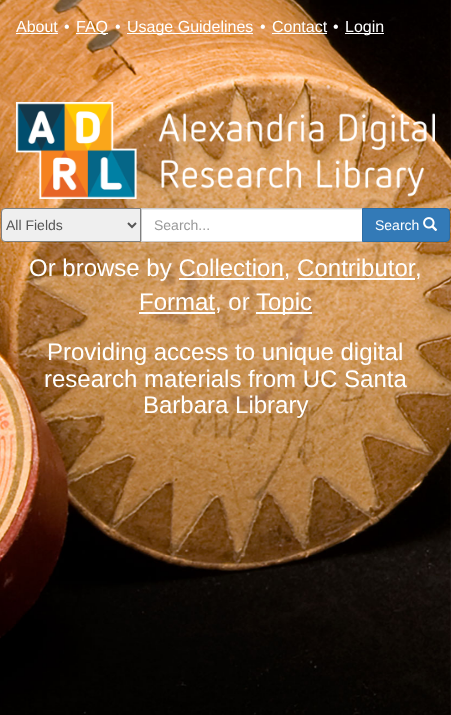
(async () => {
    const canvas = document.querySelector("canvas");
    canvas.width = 451;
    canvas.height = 715;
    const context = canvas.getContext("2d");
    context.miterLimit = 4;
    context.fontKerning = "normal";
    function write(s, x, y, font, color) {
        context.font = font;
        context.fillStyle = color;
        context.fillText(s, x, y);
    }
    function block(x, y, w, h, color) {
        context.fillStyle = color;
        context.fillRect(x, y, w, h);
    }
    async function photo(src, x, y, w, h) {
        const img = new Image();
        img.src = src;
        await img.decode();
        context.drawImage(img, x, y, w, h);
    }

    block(0, 0, 451, 715, "rgb(255, 255, 255)");
    await photo("media/1.png", 0, 0, 451, 715);
    write("About", 16, 32, "16px Liberation Sans", "rgb(255, 255, 255)");
    block(16, 33, 42, 1, "rgb(255, 255, 255)");
    write("•", 64, 32, "16px Liberation Sans", "rgb(255, 255, 255)");
    block(76, 33, 32, 1, "rgb(255, 255, 255)");
    write("FAQ", 76, 32, "16px Liberation Sans", "rgb(255, 255, 255)");
    write("•", 115, 32, "16px Liberation Sans", "rgb(255, 255, 255)");
    block(127, 33, 126, 1, "rgb(255, 255, 255)");
    write("Usage Guidelines", 127, 32, "16px Liberation Sans", "rgb(255, 255, 255)");
    write("•", 260, 32, "16px Liberation Sans", "rgb(255, 255, 255)");
    write("Contact", 272, 32, "16px Liberation Sans", "rgb(255, 255, 255)");
    block(272, 33, 55, 1, "rgb(255, 255, 255)");
    write("•", 333, 32, "16px Liberation Sans", "rgb(255, 255, 255)");
    block(345, 33, 39, 1, "rgb(255, 255, 255)");
    write("Login", 345, 32, "16px Liberation Sans", "rgb(255, 255, 255)");
    await photo("media/2.png", 16, 102, 419, 97);
    block(1, 243, 449, 1, "rgba(255, 255, 255, 0.1)");
    block(1, 208, 449, 1, "rgba(255, 255, 255, 0.1)");
    context.fillStyle = "rgb(239, 239, 239)";
    context.beginPath();
    context.roundRect(1.5, 208.5, 139, 33, [3.5, 0, 0, 3.5]);
    context.fill();
    context.strokeStyle = "rgb(128, 128, 128)";
    context.stroke();
    context.beginPath();
    context.moveTo(128, 223);
    context.lineTo(132, 227);
    context.lineTo(136, 223);
    context.strokeStyle = "rgb(85, 85, 85)";
    context.lineWidth = 2;
    context.stroke();
    write("All Fields", 6, 230, "14px Liberation Sans", "rgb(85, 85, 85)");
    block(142, 210, 220, 31, "rgb(255, 255, 255)");
    block(142, 209, 220, 1, "rgb(236, 236, 236)");
    context.strokeStyle = "rgb(204, 204, 204)";
    context.lineWidth = 1;
    context.strokeRect(141.5, 208.5, 221, 33);
    write("Search...", 154, 230, "14px Liberation Sans", "rgb(153, 153, 153)");
    context.fillStyle = "rgb(51, 122, 183)";
    context.beginPath();
    context.roundRect(362.5, 208.5, 87, 33, [0, 3.5, 3.5, 0]);
    context.fill();
    context.strokeStyle = "rgb(46, 109, 164)";
    context.stroke();
    write("Search", 375, 230, "14px Liberation Sans", "rgb(255, 255, 255)");
    await photo("media/3.png", 423, 217, 15, 14);
    write("Or browse by Collection, Contributor", 29, 276, "24px Liberation Sans", "rgb(255, 255, 255)");
    write(",", 415, 276, "24px Liberation Sans", "rgb(255, 255, 255)");
    block(179, 278, 105, 2, "rgb(255, 255, 255)");
    block(298, 278, 117, 2, "rgb(255, 255, 255)");
    block(139, 312, 76, 2, "rgb(255, 255, 255)");
    write("Format, or", 139, 310, "24px Liberation Sans", "rgb(255, 255, 255)");
    block(256, 312, 56, 2, "rgb(255, 255, 255)");
    write("Topic", 256, 310, "24px Liberation Sans", "rgb(255, 255, 255)");
    write("Providing access to unique digital", 47, 360, "24px Liberation Sans", "rgb(255, 255, 255)");
    write("research materials from UC Santa", 44, 387, "24px Liberation Sans", "rgb(255, 255, 255)");
    write("Barbara Library", 143, 413, "24px Liberation Sans", "rgb(255, 255, 255)");
})();
